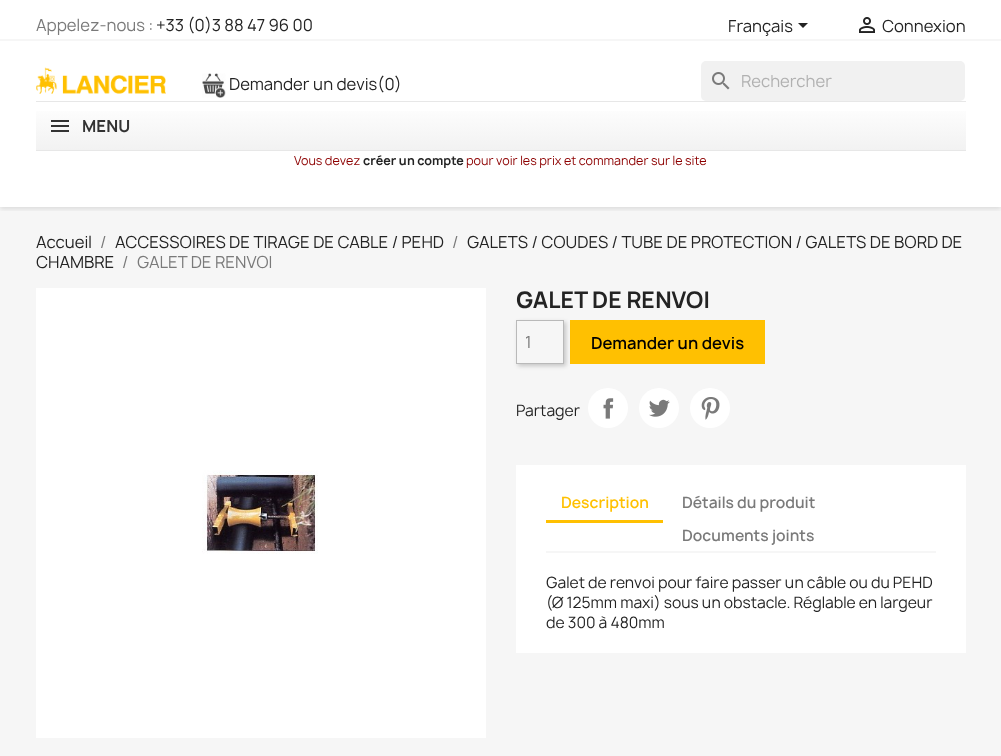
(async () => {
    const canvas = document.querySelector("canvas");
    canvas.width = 1001;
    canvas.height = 756;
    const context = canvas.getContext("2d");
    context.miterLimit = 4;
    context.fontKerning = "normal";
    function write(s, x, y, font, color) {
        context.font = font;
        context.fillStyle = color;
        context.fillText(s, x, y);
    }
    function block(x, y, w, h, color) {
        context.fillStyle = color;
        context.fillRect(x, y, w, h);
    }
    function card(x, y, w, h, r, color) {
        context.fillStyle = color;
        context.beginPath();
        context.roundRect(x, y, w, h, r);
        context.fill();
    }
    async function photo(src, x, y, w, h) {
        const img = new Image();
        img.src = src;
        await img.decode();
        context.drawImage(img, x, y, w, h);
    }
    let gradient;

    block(0, 0, 1001, 756, "rgb(255, 255, 255)");
    block(0, 207, 1001, 549, "rgb(246, 246, 246)");
    context.save();
    context.beginPath();
    context.rect(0, 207, 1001, 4);
    context.clip();
    context.fillStyle = "rgba(0, 0, 0, 0.11)";
    context.filter = "blur(2.5px)";
    context.beginPath();
    context.rect(0, 2, 1001, 207);
    context.fill();
    context.filter = "none";
    context.restore();
    block(0, 39, 1001, 2, "rgb(246, 246, 246)");
    write("Appelez-nous :", 36, 31, "16px Manrope", "rgb(122, 122, 122)");
    write("+33 (0)3 88 47 96 00", 156, 31, "16px Manrope", "rgb(35, 35, 35)");
    write("Français", 728, 32, "16px Manrope", "rgb(35, 35, 35)");
    context.beginPath();
    context.moveTo(798, 23);
    context.lineTo(808, 23);
    context.lineTo(803, 28);
    context.closePath();
    context.fill();
    await photo("media/1.png", 859, 17, 16, 16);
    write("Connexion", 882, 32, "16px Manrope", "rgb(35, 35, 35)");
    await photo("media/2.png", 36, 67, 130, 27);
    await photo("media/3.png", 202, 73, 24, 25);
    write("Demander un devis(0)", 229, 90, "16px Manrope", "rgb(35, 35, 35)");
    card(701, 61, 264, 40, 5, "rgb(241, 241, 241)");
    await photo("media/4.png", 712, 72, 18, 18);
    write("Rechercher", 741, 87, "16px Manrope", "rgb(177, 177, 177)");
    gradient = context.createLinearGradient(501, 102, 501, 150);
    gradient.addColorStop(0, "rgb(255, 255, 255)");
    gradient.addColorStop(1, "rgb(242, 242, 242)");
    context.fillStyle = gradient;
    context.fillRect(36, 111, 930, 39);
    block(36, 101, 930, 1, "rgb(231, 231, 231)");
    block(36, 150, 930, 1, "rgb(231, 231, 231)");
    block(51, 120, 18, 2, "rgb(51, 51, 51)");
    block(51, 125, 18, 2, "rgb(51, 51, 51)");
    block(51, 130, 18, 2, "rgb(51, 51, 51)");
    write("MENU", 82, 132, "bold 16px Manrope", "rgb(51, 51, 51)");
    write("Vous devez", 294, 165, "12px Manrope", "rgb(141, 0, 0)");
    write("créer un compte", 363, 165, "bold 12px Manrope", "rgb(35, 35, 35)");
    write("pour voir les prix et commander sur le site", 466, 165, "12px Manrope", "rgb(141, 0, 0)");
    write("Accueil", 36, 248, "16px Manrope", "rgb(35, 35, 35)");
    write("/", 100, 248, "16px Manrope", "rgb(122, 122, 122)");
    write("ACCESSOIRES DE TIRAGE DE CABLE / PEHD", 115, 248, "16px Manrope", "rgb(35, 35, 35)");
    write("/", 452, 248, "16px Manrope", "rgb(122, 122, 122)");
    write("GALETS / COUDES / TUBE DE PROTECTION / GALETS DE BORD DE", 467, 248, "16px Manrope", "rgb(35, 35, 35)");
    write("CHAMBRE", 36, 268, "16px Manrope", "rgb(35, 35, 35)");
    write("/", 122, 268, "16px Manrope", "rgb(122, 122, 122)");
    write("GALET DE RENVOI", 137, 268, "16px Manrope", "rgb(122, 122, 122)");
    block(36, 288, 450, 450, "rgb(255, 255, 255)");
    await photo("media/5.png", 202, 470, 116, 84);
    write("GALET DE RENVOI", 516, 308, "bold 22px Manrope", "rgb(35, 35, 35)");
    block(570, 320, 195, 44, "rgb(255, 192, 1)");
    context.save();
    context.beginPath();
    context.moveTo(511, 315);
    context.lineTo(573, 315);
    context.lineTo(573, 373);
    context.lineTo(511, 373);
    context.closePath();
    context.moveTo(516, 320);
    context.lineTo(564, 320);
    context.lineTo(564, 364);
    context.lineTo(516, 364);
    context.closePath();
    context.clip("evenodd");
    context.fillStyle = "rgba(0, 0, 0, 0.2)";
    context.filter = "blur(2px)";
    context.beginPath();
    context.rect(518, 322, 48, 44);
    context.fill();
    context.filter = "none";
    context.restore();
    context.strokeStyle = "rgb(185, 185, 185)";
    context.strokeRect(516.5, 320.5, 47, 43);
    write("1", 525, 348, "16px Manrope", "rgb(122, 122, 122)");
    write("Demander un devis", 591, 349, "600 16px Manrope", "rgb(0, 0, 0)");
    write("Partager", 516, 416, "15px Manrope", "rgb(35, 35, 35)");
    context.fillStyle = "rgb(255, 255, 255)";
    context.beginPath();
    context.arc(608, 408, 20, 0, Math.PI * 2);
    context.fill();
    await photo("media/6.png", 603, 398, 11, 21);
    context.beginPath();
    context.arc(659, 408, 20, 0, Math.PI * 2);
    context.fill();
    await photo("media/7.png", 649, 399, 21, 18);
    context.beginPath();
    context.arc(710, 408, 20, 0, Math.PI * 2);
    context.fill();
    await photo("media/8.png", 701, 397, 19, 23);
    block(516, 465, 450, 188, "rgb(255, 255, 255)");
    block(546, 551, 390, 2, "rgb(246, 246, 246)");
    block(546, 520, 117, 3, "rgb(255, 192, 1)");
    write("Description", 561, 508, "600 15px Manrope", "rgb(255, 192, 1)");
    write("Détails du produit", 682, 508, "600 15px Manrope", "rgb(122, 122, 122)");
    write("Documents joints", 682, 541, "600 15px Manrope", "rgb(122, 122, 122)");
    write("Galet de renvoi pour faire passer un câble ou du PEHD", 546, 588, "15px Manrope", "rgb(35, 35, 35)");
    write("(Ø 125mm maxi) sous un obstacle. Réglable en largeur", 546, 608, "15px Manrope", "rgb(35, 35, 35)");
    write("de 300 à 480mm", 546, 628, "15px Manrope", "rgb(35, 35, 35)");
})();
